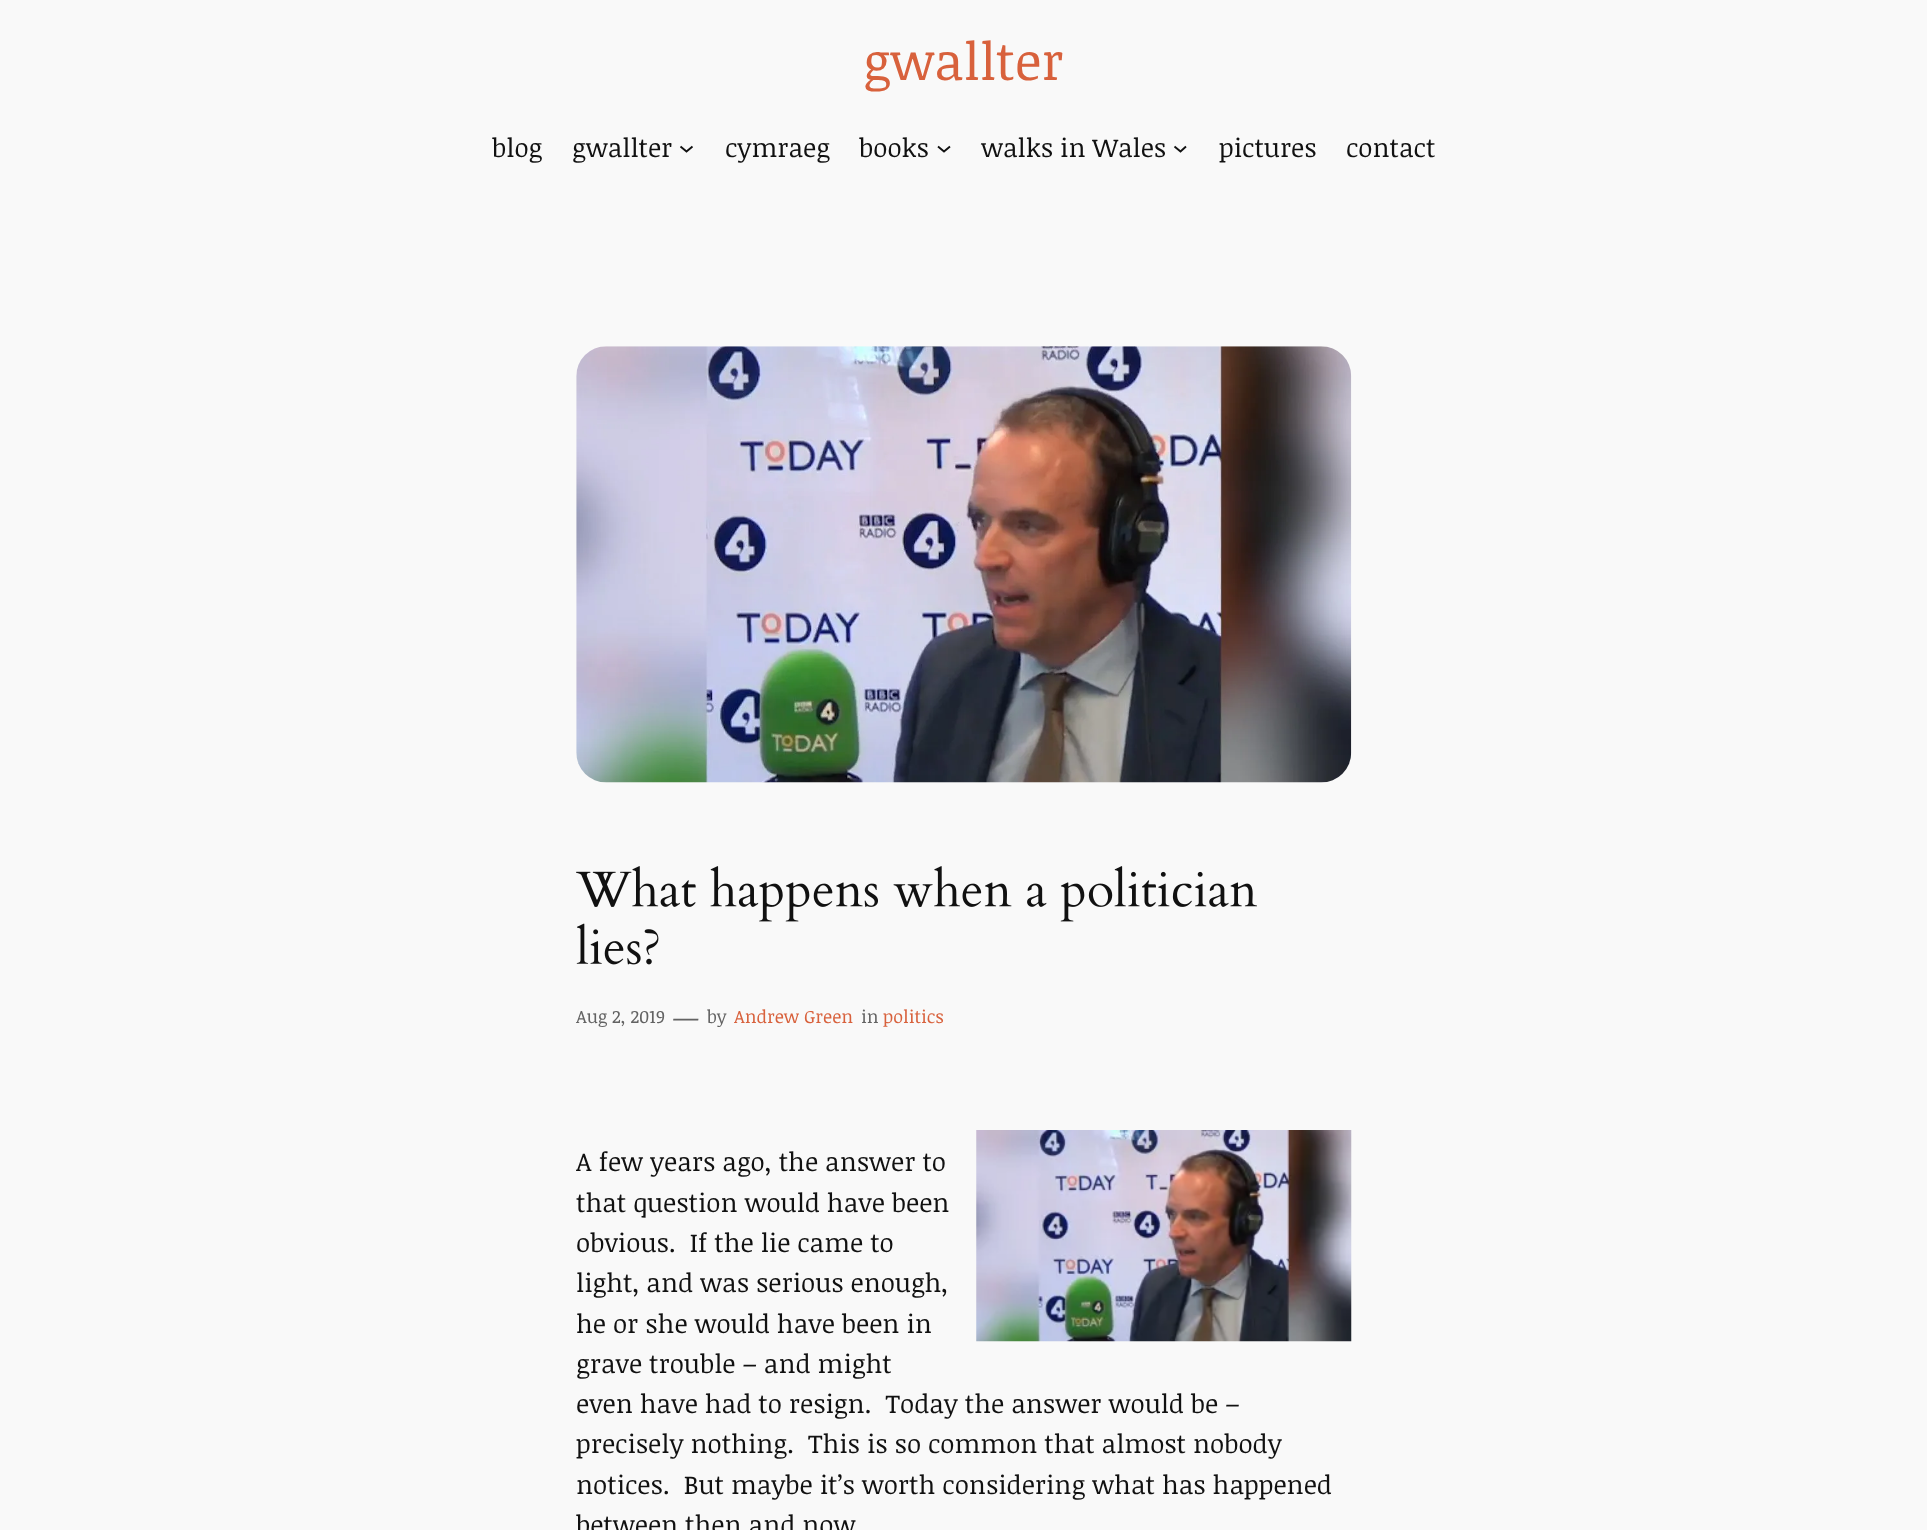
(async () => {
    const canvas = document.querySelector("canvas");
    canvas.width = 1927;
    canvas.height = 1530;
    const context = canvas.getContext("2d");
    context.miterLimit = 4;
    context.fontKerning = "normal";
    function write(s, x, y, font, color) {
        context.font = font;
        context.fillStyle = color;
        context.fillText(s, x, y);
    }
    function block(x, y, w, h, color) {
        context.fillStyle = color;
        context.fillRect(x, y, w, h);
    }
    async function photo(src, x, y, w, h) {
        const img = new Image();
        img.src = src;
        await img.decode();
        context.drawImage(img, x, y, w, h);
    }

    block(0, 0, 1927, 1530, "rgb(249, 249, 249)");
    write("gwallter", 863, 80, "52px Noticia Text", "rgb(216, 97, 60)");
    write("blog", 492, 157, "26px Noticia Text", "rgb(17, 17, 17)");
    write("gwallter", 572, 157, "26px Noticia Text", "rgb(17, 17, 17)");
    context.beginPath();
    context.moveTo(680.5, 146.5);
    context.lineTo(686.5, 151.5);
    context.lineTo(692.5, 146.5);
    context.strokeStyle = "rgb(17, 17, 17)";
    context.lineWidth = 1.9;
    context.stroke();
    write("cymraeg", 725, 157, "26px Noticia Text", "rgb(17, 17, 17)");
    write("books", 859, 157, "26px Noticia Text", "rgb(17, 17, 17)");
    context.beginPath();
    context.moveTo(938, 146.5);
    context.lineTo(944, 151.5);
    context.lineTo(950, 146.5);
    context.stroke();
    write("walks in Wales", 981, 157, "26px Noticia Text", "rgb(17, 17, 17)");
    context.beginPath();
    context.moveTo(1174.5, 146.5);
    context.lineTo(1180.5, 151.5);
    context.lineTo(1186, 146.5);
    context.stroke();
    write("pictures", 1219, 157, "26px Noticia Text", "rgb(17, 17, 17)");
    write("contact", 1346, 157, "26px Noticia Text", "rgb(17, 17, 17)");
    await photo("media/1.png", 576, 346, 776, 437);
    await photo("media/2.png", 576, 866, 681, 56);
    await photo("media/3.png", 576, 923, 83, 42);
    write("Aug 2, 2019", 576, 1023, "18px Noticia Text", "rgb(99, 99, 99)");
    write("—", 673, 1027, "26px Noticia Text", "rgb(99, 99, 99)");
    write("by", 707, 1023, "18px Noticia Text", "rgb(99, 99, 99)");
    write("Andrew Green", 734, 1023, "18px Noticia Text", "rgb(216, 97, 60)");
    write("in", 861, 1023, "18px Noticia Text", "rgb(99, 99, 99)");
    write("politics", 883, 1023, "18px Noticia Text", "rgb(216, 97, 60)");
    await photo("media/4.png", 976, 1130, 376, 212);
    write("A few years ago, the answer to", 576, 1171, "26px Noticia Text", "rgb(17, 17, 17)");
    write("that question would have been", 576, 1212, "26px Noticia Text", "rgb(17, 17, 17)");
    write("obvious.  If the lie came to", 576, 1252, "26px Noticia Text", "rgb(17, 17, 17)");
    write("light, and was serious enough,", 576, 1292, "26px Noticia Text", "rgb(17, 17, 17)");
    write("he or she would have been in", 576, 1333, "26px Noticia Text", "rgb(17, 17, 17)");
    write("grave trouble – and might", 576, 1373, "26px Noticia Text", "rgb(17, 17, 17)");
    write("even have had to resign.  Today the answer would be –", 576, 1413, "26px Noticia Text", "rgb(17, 17, 17)");
    write("precisely nothing.  This is so common that almost nobody", 576, 1453, "26px Noticia Text", "rgb(17, 17, 17)");
    write("notices.  But maybe it’s worth considering what has happened", 576, 1494, "26px Noticia Text", "rgb(17, 17, 17)");
    write("between then and now", 576, 1534, "26px Noticia Text", "rgb(17, 17, 17)");
})();
